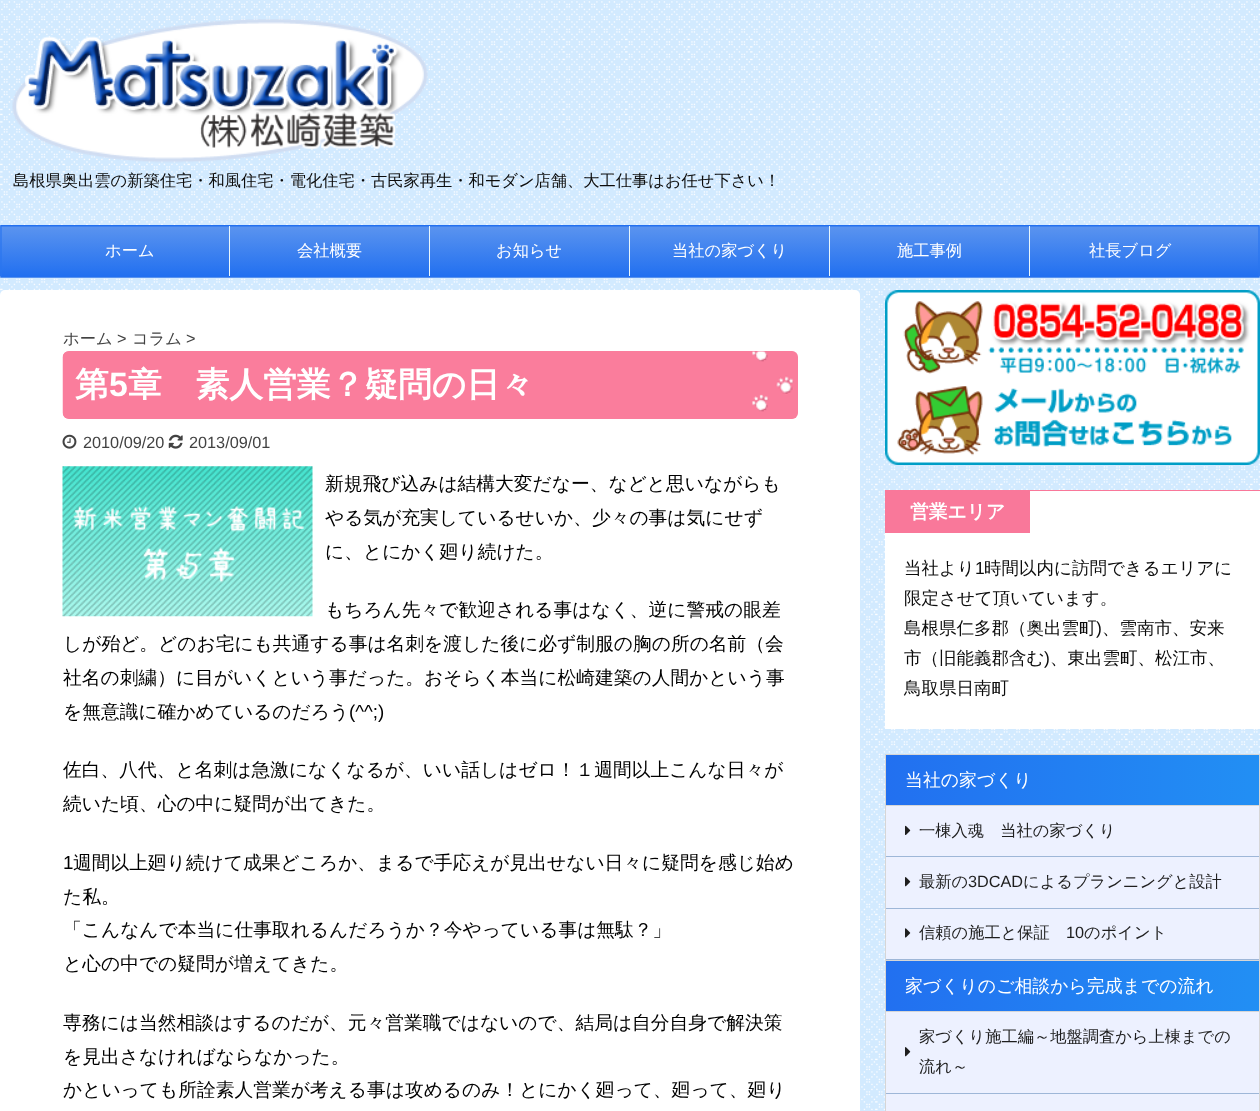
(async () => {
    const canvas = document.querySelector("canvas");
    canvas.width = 1260;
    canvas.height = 1111;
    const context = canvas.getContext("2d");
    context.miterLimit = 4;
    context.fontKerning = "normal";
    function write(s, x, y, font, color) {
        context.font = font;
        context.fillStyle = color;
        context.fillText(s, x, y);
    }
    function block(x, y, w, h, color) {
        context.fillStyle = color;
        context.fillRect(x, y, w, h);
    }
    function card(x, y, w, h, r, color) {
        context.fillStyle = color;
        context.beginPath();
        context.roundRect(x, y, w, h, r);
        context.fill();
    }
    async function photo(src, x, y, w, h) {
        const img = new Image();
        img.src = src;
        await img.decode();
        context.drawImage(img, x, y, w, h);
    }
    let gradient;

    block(0, 0, 1260, 1111, "rgb(255, 255, 255)");
    await photo("media/1.png", 0, 0, 1260, 1111);
    await photo("media/2.png", 12, 19, 416, 144);
    write("島根県奥出雲の新築住宅・和風住宅・電化住宅・古民家再生・和モダン店舗、大工仕事はお任せ下さい！", 13, 186, "500 16.25px WenQuanYi Zen Hei", "rgb(12, 12, 12)");
    gradient = context.createLinearGradient(630, 176, 630, 226);
    gradient.addColorStop(0, "rgb(91, 148, 239)");
    gradient.addColorStop(1, "rgb(34, 112, 240)");
    context.fillStyle = gradient;
    context.beginPath();
    context.roundRect(0, 225, 1260, 1, [1, 1, 0, 0]);
    context.fill();
    gradient = context.createLinearGradient(630, 226, 630, 276);
    gradient.addColorStop(0, "rgb(91, 148, 239)");
    gradient.addColorStop(1, "rgb(34, 112, 240)");
    context.fillStyle = gradient;
    context.fillRect(0, 226, 1260, 50);
    gradient = context.createLinearGradient(630, 276, 630, 326);
    gradient.addColorStop(0, "rgb(91, 148, 239)");
    gradient.addColorStop(1, "rgb(34, 112, 240)");
    context.fillStyle = gradient;
    context.beginPath();
    context.roundRect(0, 276, 1260, 2, [0, 0, 1, 1]);
    context.fill();
    context.beginPath();
    context.moveTo(1, 226);
    context.lineTo(1259, 226);
    context.strokeStyle = "rgb(34, 112, 240)";
    context.lineWidth = 1.2;
    context.stroke();
    context.beginPath();
    context.moveTo(1259, 226);
    context.lineTo(1259, 276.5);
    context.strokeStyle = "rgb(43, 118, 239)";
    context.stroke();
    block(1, 276, 1258, 1, "rgb(34, 112, 240)");
    context.beginPath();
    context.moveTo(1, 276.5);
    context.lineTo(1, 226);
    context.stroke();
    block(229, 226, 1, 50, "rgb(232, 246, 252)");
    write("ホーム", 105, 256, "500 16.25px WenQuanYi Zen Hei", "rgb(255, 255, 255)");
    block(429, 226, 1, 50, "rgb(232, 246, 252)");
    write("会社概要", 297, 256, "500 16.25px WenQuanYi Zen Hei", "rgb(255, 255, 255)");
    block(629, 226, 1, 50, "rgb(232, 246, 252)");
    write("お知らせ", 496, 256, "500 16.25px WenQuanYi Zen Hei", "rgb(255, 255, 255)");
    block(829, 226, 1, 50, "rgb(232, 246, 252)");
    write("当社の家づくり", 672, 256, "500 16.25px WenQuanYi Zen Hei", "rgb(255, 255, 255)");
    block(1029, 226, 1, 50, "rgb(232, 246, 252)");
    write("施工事例", 897, 256, "500 16.25px WenQuanYi Zen Hei", "rgb(255, 255, 255)");
    write("社長ブログ", 1089, 256, "500 16.25px WenQuanYi Zen Hei", "rgb(255, 255, 255)");
    card(0, 290, 860, 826, 5, "rgb(255, 255, 255)");
    write("ホーム", 63, 344, "500 16.25px WenQuanYi Zen Hei", "rgb(66, 66, 66)");
    write(">", 117, 344, "16.25px Liberation Sans", "rgb(66, 66, 66)");
    write("コラム", 132, 344, "500 16.25px WenQuanYi Zen Hei", "rgb(66, 66, 66)");
    write(">", 186, 344, "16.25px Liberation Sans", "rgb(66, 66, 66)");
    card(63, 351, 735, 68, 6, "rgb(250, 125, 156)");
    await photo("media/3.png", 62, 351, 732, 68);
    write("第", 75, 396, "bold 33.75px WenQuanYi Zen Hei", "rgb(255, 255, 255)");
    write("5", 109, 396, "bold 33.75px Liberation Sans", "rgb(255, 255, 255)");
    write("章　素人営業？疑問の日々", 128, 396, "bold 33.75px WenQuanYi Zen Hei", "rgb(255, 255, 255)");
    await photo("media/4.png", 62, 434, 15, 15);
    write("2010/09/20", 83, 448, "16.25px Liberation Sans", "rgb(66, 66, 66)");
    await photo("media/5.png", 168, 434, 15, 15);
    write("2013/09/01", 189, 448, "16.25px Liberation Sans", "rgb(66, 66, 66)");
    await photo("media/6.png", 62, 466, 251, 151);
    write("新規飛び込みは結構大変だなー、などと思いながらも", 325, 490, "500 18.75px WenQuanYi Zen Hei", "rgb(0, 0, 0)");
    write("やる気が充実しているせいか、少々の事は気にせず", 325, 524, "500 18.75px WenQuanYi Zen Hei", "rgb(0, 0, 0)");
    write("に、とにかく廻り続けた。", 325, 558, "500 18.75px WenQuanYi Zen Hei", "rgb(0, 0, 0)");
    write("もちろん先々で歓迎される事はなく、逆に警戒の眼差", 325, 616, "500 18.75px WenQuanYi Zen Hei", "rgb(0, 0, 0)");
    write("しが殆ど。どのお宅にも共通する事は名刺を渡した後に必ず制服の胸の所の名前（会", 63, 650, "500 18.75px WenQuanYi Zen Hei", "rgb(0, 0, 0)");
    write("社名の刺繍）に目がいくという事だった。おそらく本当に松崎建築の人間かという事", 63, 684, "500 18.75px WenQuanYi Zen Hei", "rgb(0, 0, 0)");
    write("を無意識に確かめているのだろう", 63, 718, "500 18.75px WenQuanYi Zen Hei", "rgb(0, 0, 0)");
    write("(^^;)", 349, 718, "18.75px Liberation Sans", "rgb(0, 0, 0)");
    write("佐白、八代、と名刺は急激になくなるが、いい話しはゼロ！１週間以上こんな日々が", 63, 776, "500 18.75px WenQuanYi Zen Hei", "rgb(0, 0, 0)");
    write("続いた頃、心の中に疑問が出てきた。", 63, 810, "500 18.75px WenQuanYi Zen Hei", "rgb(0, 0, 0)");
    write("1", 63, 869, "18.75px Liberation Sans", "rgb(0, 0, 0)");
    write("週間以上廻り続けて成果どころか、まるで手応えが見出せない日々に疑問を感じ始め", 73, 869, "500 18.75px WenQuanYi Zen Hei", "rgb(0, 0, 0)");
    write("た私。", 63, 903, "500 18.75px WenQuanYi Zen Hei", "rgb(0, 0, 0)");
    write("「こんなんで本当に仕事取れるんだろうか？今やっている事は無駄？」", 63, 936, "500 18.75px WenQuanYi Zen Hei", "rgb(0, 0, 0)");
    write("と心の中での疑問が増えてきた。", 63, 970, "500 18.75px WenQuanYi Zen Hei", "rgb(0, 0, 0)");
    write("専務には当然相談はするのだが、元々営業職ではないので、結局は自分自身で解決策", 63, 1029, "500 18.75px WenQuanYi Zen Hei", "rgb(0, 0, 0)");
    write("を見出さなければならなかった。", 63, 1063, "500 18.75px WenQuanYi Zen Hei", "rgb(0, 0, 0)");
    write("かといっても所詮素人営業が考える事は攻めるのみ！とにかく廻って、廻って、廻り", 63, 1096, "500 18.75px WenQuanYi Zen Hei", "rgb(0, 0, 0)");
    await photo("media/7.png", 885, 290, 375, 175);
    block(885, 491, 375, 238, "rgb(255, 255, 255)");
    block(885, 490, 375, 1, "rgb(249, 120, 154)");
    block(885, 491, 145, 42, "rgb(249, 120, 154)");
    write("営業エリア", 910, 518, "bold 18.75px WenQuanYi Zen Hei", "rgb(255, 255, 255)");
    write("当社より", 904, 574, "500 17.5px WenQuanYi Zen Hei", "rgb(12, 12, 12)");
    write("1", 975, 574, "17.5px Liberation Sans", "rgb(12, 12, 12)");
    write("時間以内に訪問できるエリアに", 984, 574, "500 17.5px WenQuanYi Zen Hei", "rgb(12, 12, 12)");
    write("限定させて頂いています。", 904, 604, "500 17.5px WenQuanYi Zen Hei", "rgb(12, 12, 12)");
    write("島根県仁多郡（奥出雲町", 904, 634, "500 17.5px WenQuanYi Zen Hei", "rgb(12, 12, 12)");
    write(")", 1096, 634, "17.5px Liberation Sans", "rgb(12, 12, 12)");
    write("、雲南市、安来", 1102, 634, "500 17.5px WenQuanYi Zen Hei", "rgb(12, 12, 12)");
    write("市（旧能義郡含む", 904, 664, "500 17.5px WenQuanYi Zen Hei", "rgb(12, 12, 12)");
    write(")", 1044, 664, "17.5px Liberation Sans", "rgb(12, 12, 12)");
    write("、東出雲町、松江市、", 1050, 664, "500 17.5px WenQuanYi Zen Hei", "rgb(12, 12, 12)");
    write("鳥取県日南町", 904, 694, "500 17.5px WenQuanYi Zen Hei", "rgb(12, 12, 12)");
    block(886, 806, 373, 305, "rgb(237, 241, 255)");
    block(885, 754, 375, 1, "rgb(214, 214, 214)");
    block(1259, 754, 1, 206, "rgb(214, 214, 214)");
    block(885, 754, 1, 206, "rgb(214, 214, 214)");
    gradient = context.createLinearGradient(1259, 780, 886, 780);
    gradient.addColorStop(0, "rgb(34, 143, 244)");
    gradient.addColorStop(1, "rgb(34, 112, 240)");
    context.fillStyle = gradient;
    context.fillRect(886, 755, 373, 50);
    write("当社の家づくり", 905, 786, "500 17.9px WenQuanYi Zen Hei", "rgb(255, 255, 255)");
    block(886, 805, 373, 1, "rgb(214, 214, 214)");
    block(886, 856, 373, 1, "rgb(158, 183, 216)");
    await photo("media/8.png", 905, 825, 6, 10);
    write("一棟入魂　当社の家づくり", 919, 836, "500 16.25px WenQuanYi Zen Hei", "rgb(30, 30, 30)");
    block(886, 908, 373, 1, "rgb(158, 183, 216)");
    await photo("media/9.png", 905, 877, 6, 10);
    write("最新の", 919, 887, "500 16.25px WenQuanYi Zen Hei", "rgb(30, 30, 30)");
    write("3DCAD", 968, 887, "16.25px Liberation Sans", "rgb(30, 30, 30)");
    write("によるプランニングと設計", 1023, 887, "500 16.25px WenQuanYi Zen Hei", "rgb(30, 30, 30)");
    block(886, 959, 373, 1, "rgb(158, 183, 216)");
    await photo("media/10.png", 905, 928, 6, 10);
    write("信頼の施工と保証", 919, 938, "500 16.25px WenQuanYi Zen Hei", "rgb(30, 30, 30)");
    write("10", 1066, 938, "16.25px Liberation Sans", "rgb(30, 30, 30)");
    write("のポイント", 1084, 938, "500 16.25px WenQuanYi Zen Hei", "rgb(30, 30, 30)");
    block(885, 960, 375, 1, "rgb(214, 214, 214)");
    block(1259, 960, 1, 151, "rgb(214, 214, 214)");
    block(885, 960, 1, 151, "rgb(214, 214, 214)");
    gradient = context.createLinearGradient(1259, 986, 886, 986);
    gradient.addColorStop(0, "rgb(34, 143, 244)");
    gradient.addColorStop(1, "rgb(34, 112, 240)");
    context.fillStyle = gradient;
    context.fillRect(886, 961, 373, 50);
    write("家づくりのご相談から完成までの流れ", 905, 992, "500 17.9px WenQuanYi Zen Hei", "rgb(255, 255, 255)");
    block(886, 1011, 373, 1, "rgb(214, 214, 214)");
    block(886, 1093, 373, 1, "rgb(158, 183, 216)");
    write("家づくり施工編～地盤調査から上棟までの", 919, 1042, "500 16.25px WenQuanYi Zen Hei", "rgb(30, 30, 30)");
    await photo("media/9.png", 905, 1047, 6, 10);
    write("流れ～", 919, 1072, "500 16.25px WenQuanYi Zen Hei", "rgb(30, 30, 30)");
})();
